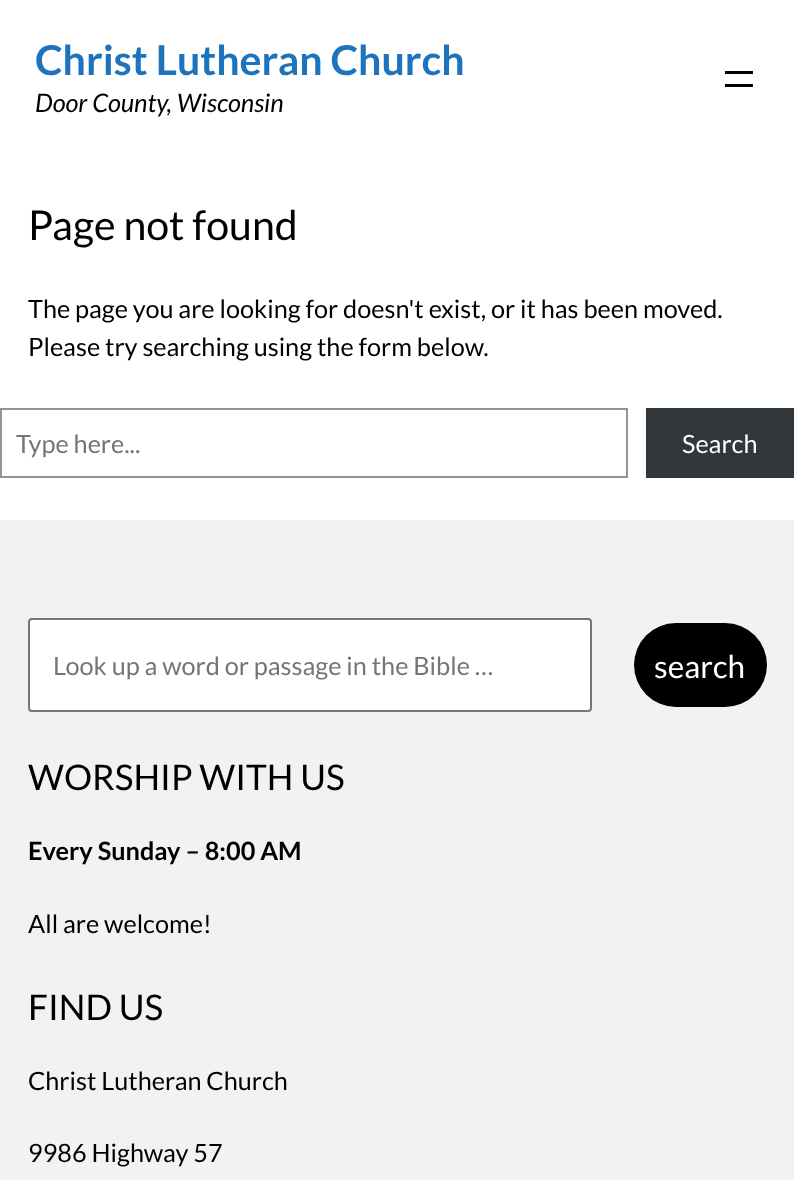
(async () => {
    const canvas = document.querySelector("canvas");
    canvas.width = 794;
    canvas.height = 1180;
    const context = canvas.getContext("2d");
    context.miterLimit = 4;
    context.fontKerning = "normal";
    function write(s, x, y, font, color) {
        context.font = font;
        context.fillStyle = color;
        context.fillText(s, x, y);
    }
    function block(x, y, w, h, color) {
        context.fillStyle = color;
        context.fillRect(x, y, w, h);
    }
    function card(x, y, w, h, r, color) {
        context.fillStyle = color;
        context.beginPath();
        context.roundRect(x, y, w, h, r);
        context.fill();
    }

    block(0, 0, 794, 1180, "rgb(255, 255, 255)");
    write("Christ Lutheran Church", 35, 75, "bold 41.1px Lato", "rgb(30, 115, 190)");
    write("Door County, Wisconsin", 35, 112, "italic 25.5px Lato", "rgb(0, 0, 0)");
    block(725, 71, 28, 3, "rgb(0, 0, 0)");
    block(725, 84, 28, 3, "rgb(0, 0, 0)");
    write("Page not found", 28, 240, "41.1px Lato", "rgb(0, 0, 0)");
    write("The page you are looking for doesn't exist, or it has been moved.", 28, 318, "25.25px Lato", "rgb(0, 0, 0)");
    write("Please try searching using the form below.", 28, 356, "25.25px Lato", "rgb(0, 0, 0)");
    context.strokeStyle = "rgb(148, 148, 148)";
    context.lineWidth = 2;
    context.strokeRect(1, 409, 626, 68);
    write("Type here...", 16, 453, "25.25px Lato", "rgb(117, 117, 117)");
    block(646, 408, 148, 70, "rgb(50, 55, 60)");
    write("Search", 682, 453, "25.25px Lato", "rgb(255, 255, 255)");
    block(0, 520, 794, 660, "rgb(242, 242, 242)");
    context.fillStyle = "rgb(255, 255, 255)";
    context.beginPath();
    context.roundRect(29, 619, 562, 92, 3);
    context.fill();
    context.strokeStyle = "rgb(118, 118, 118)";
    context.stroke();
    write("Look up a word or passage in the Bible …", 53, 675, "25.25px Lato", "rgb(117, 117, 117)");
    card(634, 623, 133, 84, 42, "rgb(0, 0, 0)");
    write("search", 654, 678, "31.5px Lato", "rgb(255, 255, 255)");
    write("WORSHIP WITH US", 28, 790, "35.25px Lato", "rgb(0, 0, 0)");
    write("Every Sunday – 8:00 AM", 28, 860, "bold 25.25px Lato", "rgb(0, 0, 0)");
    write("All are welcome!", 28, 933, "25.25px Lato", "rgb(0, 0, 0)");
    write("FIND US", 28, 1020, "35.25px Lato", "rgb(0, 0, 0)");
    write("Christ Lutheran Church", 28, 1090, "25.25px Lato", "rgb(0, 0, 0)");
    write("9986 Highway 57", 28, 1162, "25.25px Lato", "rgb(0, 0, 0)");
})();
